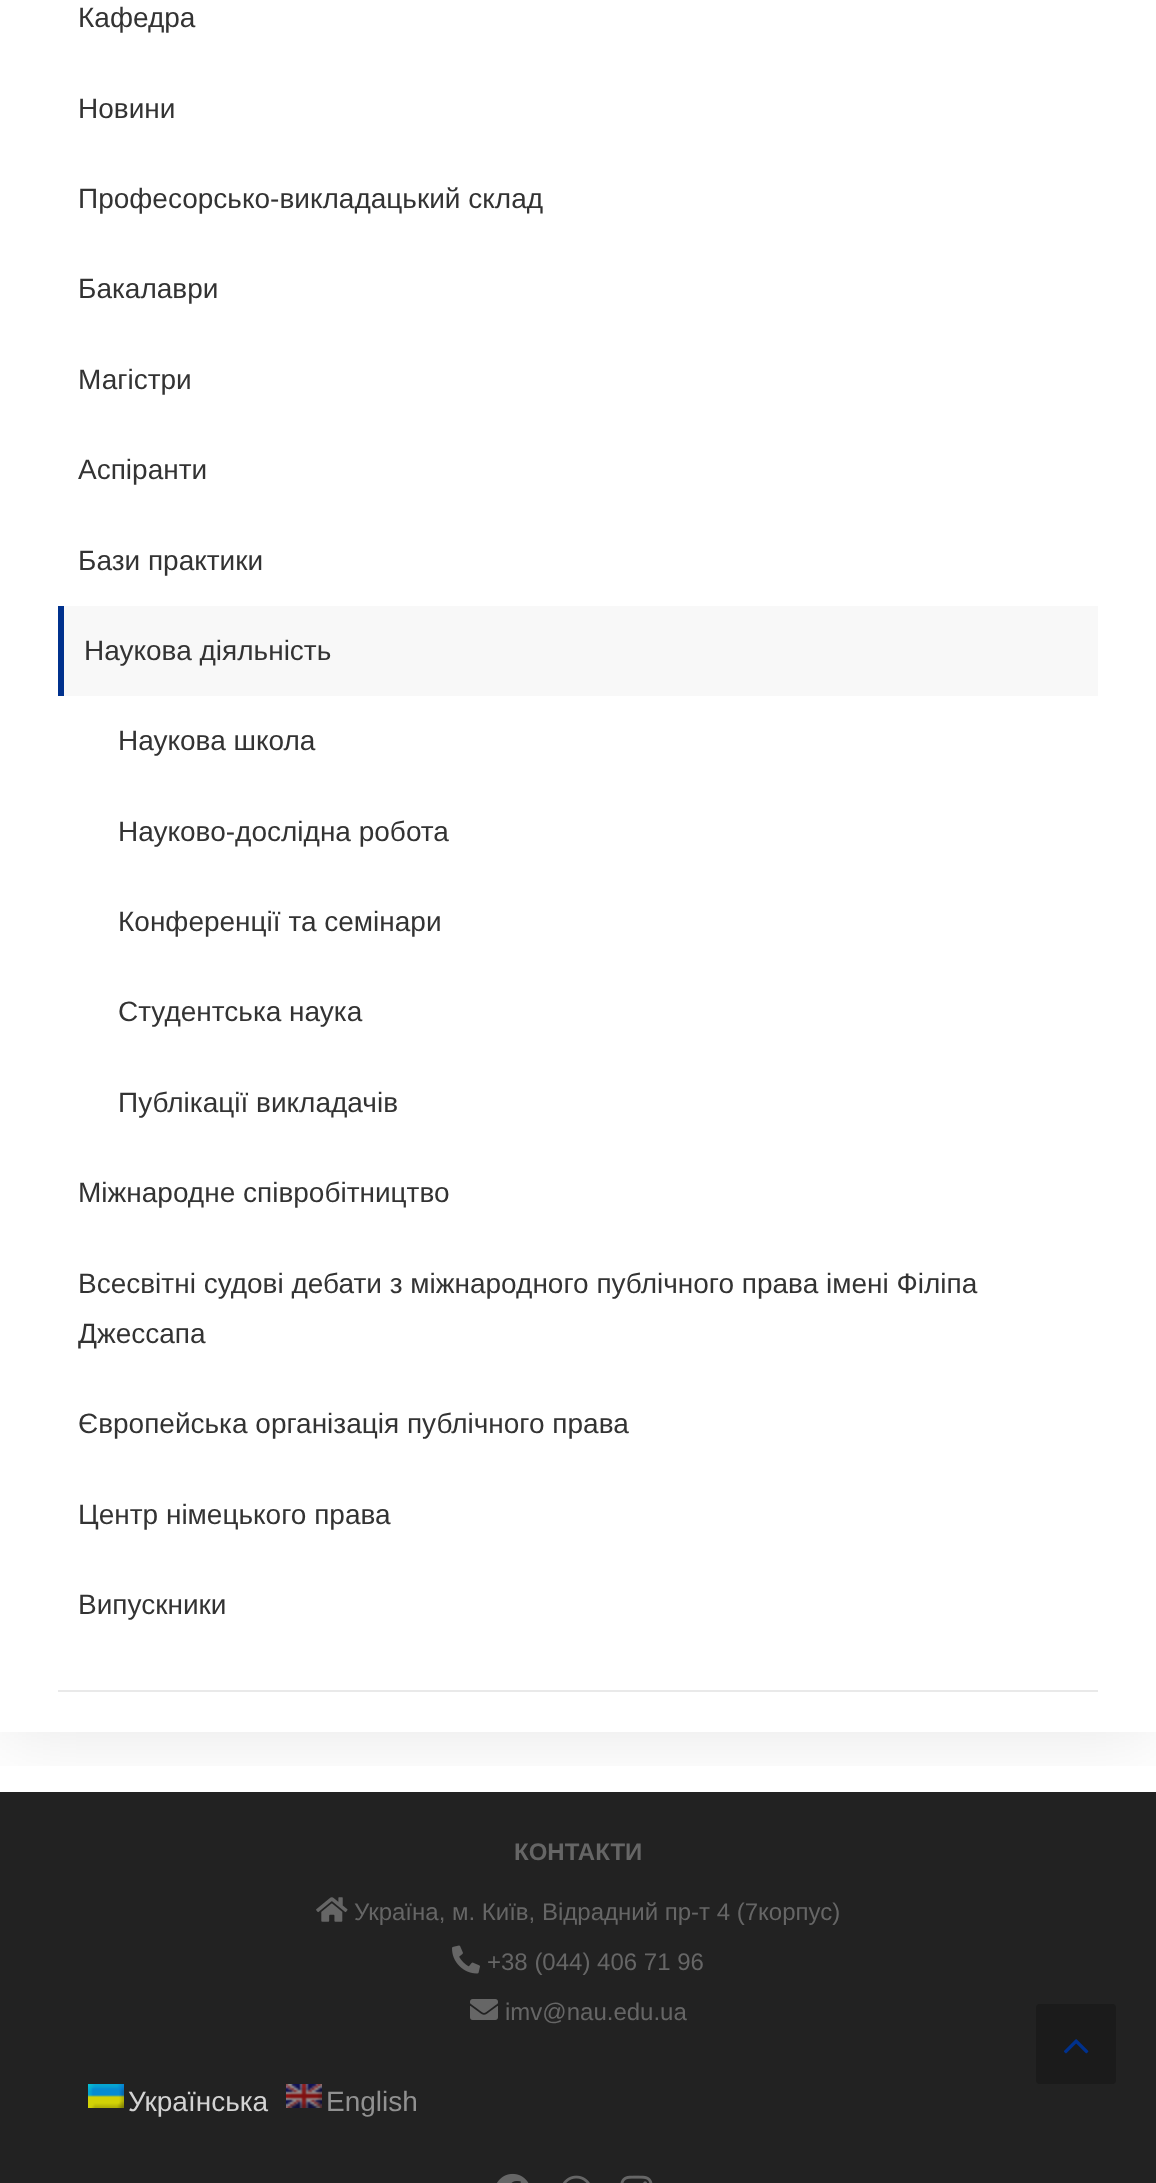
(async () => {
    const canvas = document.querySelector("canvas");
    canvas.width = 1156;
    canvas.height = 2183;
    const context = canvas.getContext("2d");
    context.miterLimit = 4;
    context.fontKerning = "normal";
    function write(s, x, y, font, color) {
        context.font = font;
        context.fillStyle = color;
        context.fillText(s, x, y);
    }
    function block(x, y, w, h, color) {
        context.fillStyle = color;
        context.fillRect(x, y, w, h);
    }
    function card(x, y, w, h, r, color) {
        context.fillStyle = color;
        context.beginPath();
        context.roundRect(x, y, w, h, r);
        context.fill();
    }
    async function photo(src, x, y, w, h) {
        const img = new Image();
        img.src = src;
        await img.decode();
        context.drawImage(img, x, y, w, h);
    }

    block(0, 0, 1156, 2183, "rgb(255, 255, 255)");
    block(0, 1792, 1156, 391, "rgb(34, 34, 34)");
    context.save();
    context.beginPath();
    context.rect(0, 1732, 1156, 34);
    context.clip();
    context.fillStyle = "rgba(0, 0, 0, 0.1)";
    context.filter = "blur(40px)";
    context.beginPath();
    context.rect(0, -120, 1156, 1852);
    context.fill();
    context.filter = "none";
    context.restore();
    block(58, 1690, 1040, 2, "rgb(233, 233, 233)");
    write("Кафедра", 78, 27, "28px Liberation Sans", "rgb(51, 51, 51)");
    write("Новини", 78, 118, "28px Liberation Sans", "rgb(51, 51, 51)");
    write("Професорсько-викладацький склад", 78, 208, "28px Liberation Sans", "rgb(51, 51, 51)");
    write("Бакалаври", 78, 298, "28px Liberation Sans", "rgb(51, 51, 51)");
    write("Магістри", 78, 389, "28px Liberation Sans", "rgb(51, 51, 51)");
    write("Аспіранти", 78, 479, "28px Liberation Sans", "rgb(51, 51, 51)");
    write("Бази практики", 78, 570, "28px Liberation Sans", "rgb(51, 51, 51)");
    block(64, 606, 1034, 90, "rgb(248, 248, 248)");
    block(58, 606, 6, 90, "rgb(0, 49, 141)");
    write("Наукова діяльність", 84, 660, "28px Liberation Sans", "rgb(51, 51, 51)");
    write("Наукова школа", 118, 750, "28px Liberation Sans", "rgb(51, 51, 51)");
    write("Науково-дослідна робота", 118, 841, "28px Liberation Sans", "rgb(51, 51, 51)");
    write("Конференції та семінари", 118, 931, "28px Liberation Sans", "rgb(51, 51, 51)");
    write("Студентська наука", 118, 1021, "28px Liberation Sans", "rgb(51, 51, 51)");
    write("Публікації викладачів", 118, 1112, "28px Liberation Sans", "rgb(51, 51, 51)");
    write("Міжнародне співробітництво", 78, 1202, "28px Liberation Sans", "rgb(51, 51, 51)");
    write("Всесвітні судові дебати з міжнародного публічного права імені Філіпа", 78, 1293, "28px Liberation Sans", "rgb(51, 51, 51)");
    write("Джессапа", 78, 1343, "28px Liberation Sans", "rgb(51, 51, 51)");
    write("Європейська організація публічного права", 78, 1433, "28px Liberation Sans", "rgb(51, 51, 51)");
    write("Центр німецького права", 78, 1524, "28px Liberation Sans", "rgb(51, 51, 51)");
    write("Випускники", 78, 1614, "28px Liberation Sans", "rgb(51, 51, 51)");
    write("КОНТАКТИ", 514, 1860, "bold 24px Liberation Sans", "rgb(102, 102, 102)");
    await photo("media/1.png", 316, 1897, 32, 25);
    write("Україна, м. Київ, Відрадний пр-т 4 (7корпус)", 354, 1920, "24px Liberation Sans", "rgb(102, 102, 102)");
    await photo("media/2.png", 452, 1945, 28, 29);
    write("+38 (044) 406 71 96", 487, 1970, "24px Liberation Sans", "rgb(102, 102, 102)");
    await photo("media/3.png", 470, 1999, 28, 21);
    write("imv@nau.edu.ua", 505, 2020, "24px Liberation Sans", "rgb(102, 102, 102)");
    await photo("media/4.png", 88, 2084, 36, 24);
    write("Українська", 128, 2111, "28px Liberation Sans", "rgb(211, 211, 211)");
    await photo("media/5.png", 286, 2084, 36, 24);
    write("English", 326, 2111, "28px Liberation Sans", "rgb(145, 145, 145)");
    await photo("media/6.png", 497, 2173, 32, 10);
    await photo("media/7.png", 563, 2175, 27, 8);
    await photo("media/8.png", 620, 2175, 33, 8);
    card(1036, 2004, 80, 80, 4, "rgb(27, 27, 27)");
    await photo("media/9.png", 1064, 2039, 25, 15);
})();
